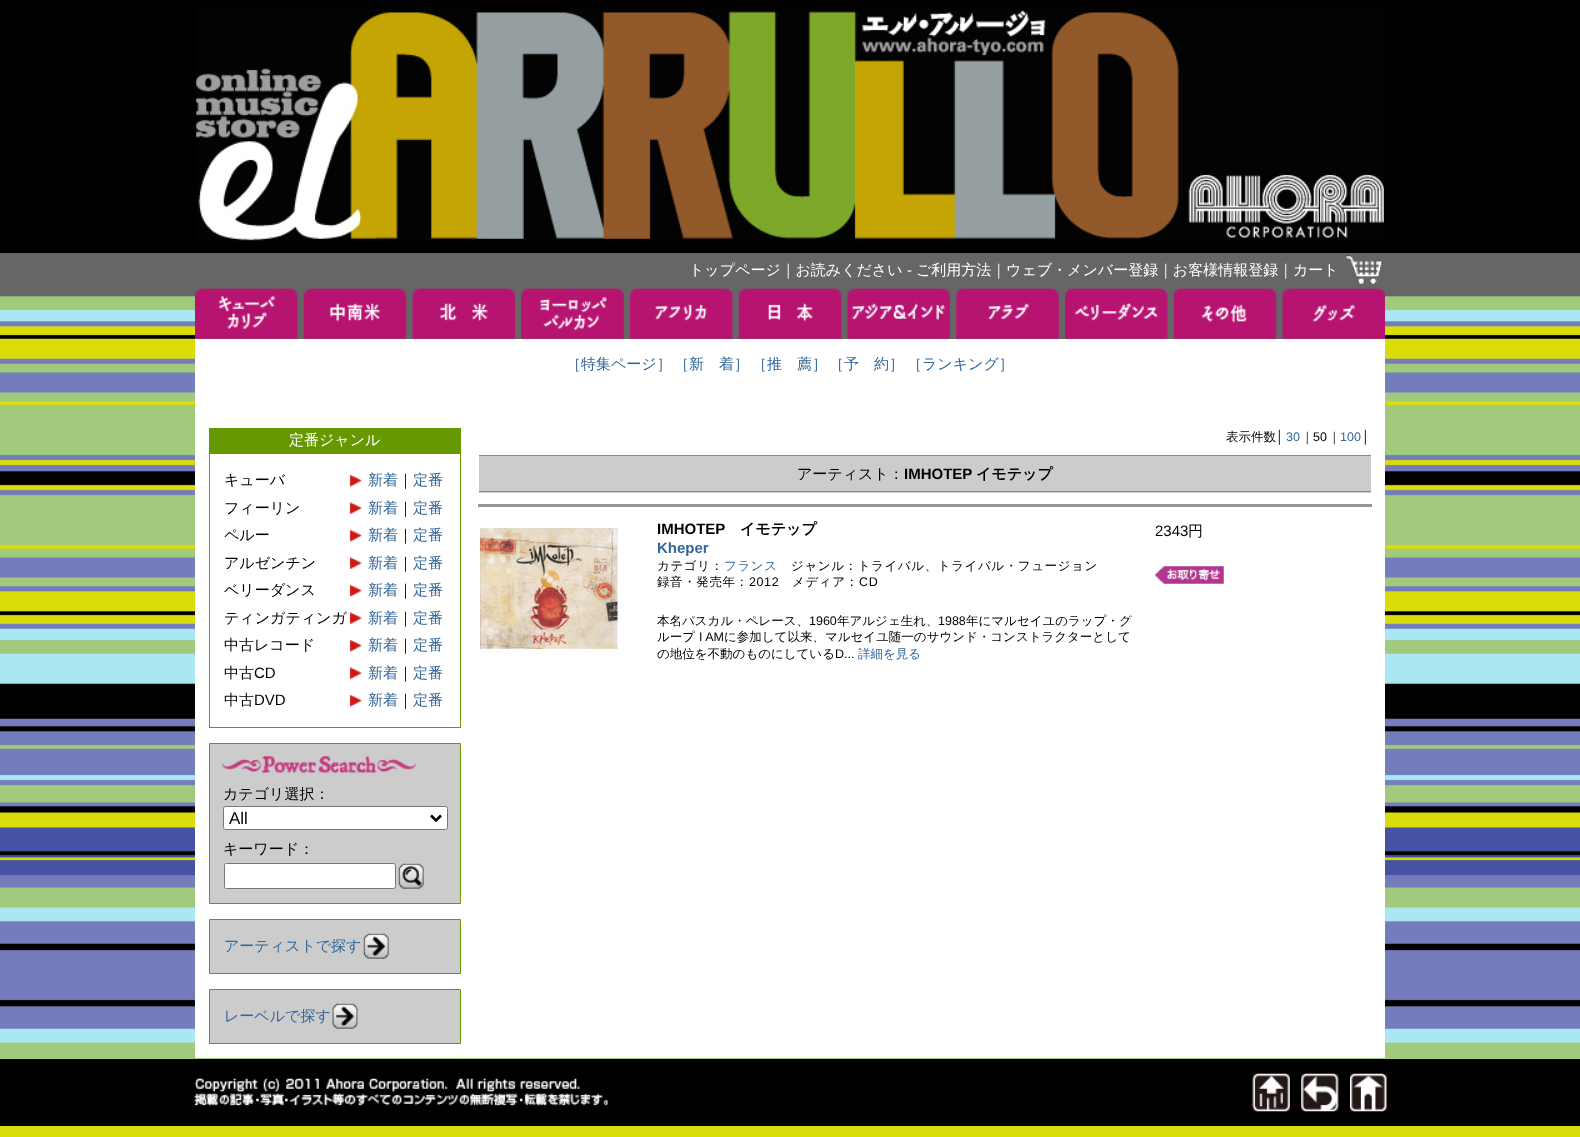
(async () => {
    const canvas = document.querySelector("canvas");
    canvas.width = 1580;
    canvas.height = 1137;
    const context = canvas.getContext("2d");
    context.miterLimit = 4;
    context.fontKerning = "normal";
    function write(s, x, y, font, color) {
        context.font = font;
        context.fillStyle = color;
        context.fillText(s, x, y);
    }
    function block(x, y, w, h, color) {
        context.fillStyle = color;
        context.fillRect(x, y, w, h);
    }
    async function photo(src, x, y, w, h) {
        const img = new Image();
        img.src = src;
        await img.decode();
        context.drawImage(img, x, y, w, h);
    }

    block(0, 0, 1580, 1137, "rgb(255, 255, 255)");
    await photo("media/1.png", 0, 288, 1580, 849);
    block(0, 0, 1580, 253, "rgb(0, 0, 0)");
    await photo("media/2.png", 196, 9, 1188, 232);
    block(0, 253, 1580, 35, "rgb(102, 102, 102)");
    write("トップページ｜お読みください", 689, 275, "500 15px WenQuanYi Zen Hei", "rgb(255, 255, 255)");
    write("-", 907, 275, "15px Liberation Sans", "rgb(255, 255, 255)");
    write("ご利用方法｜ウェブ・メンバー登録｜お客様情報登録｜カート", 916, 275, "500 15px WenQuanYi Zen Hei", "rgb(255, 255, 255)");
    await photo("media/3.png", 1346, 255, 37, 29);
    block(195, 296, 103, 43, "rgb(102, 102, 102)");
    await photo("media/4.png", 195, 288, 103, 51);
    block(298, 289, 6, 50, "rgb(102, 102, 102)");
    block(304, 296, 102, 43, "rgb(102, 102, 102)");
    block(406, 289, 7, 50, "rgb(102, 102, 102)");
    await photo("media/5.png", 303, 288, 104, 51);
    block(413, 296, 102, 43, "rgb(102, 102, 102)");
    await photo("media/6.png", 412, 288, 103, 51);
    block(515, 289, 6, 50, "rgb(102, 102, 102)");
    block(521, 296, 103, 43, "rgb(102, 102, 102)");
    await photo("media/7.png", 521, 288, 103, 51);
    block(624, 289, 6, 50, "rgb(102, 102, 102)");
    block(630, 296, 103, 43, "rgb(102, 102, 102)");
    await photo("media/8.png", 630, 288, 103, 51);
    block(733, 289, 6, 50, "rgb(102, 102, 102)");
    block(739, 296, 102, 43, "rgb(102, 102, 102)");
    block(841, 289, 7, 50, "rgb(102, 102, 102)");
    await photo("media/9.png", 738, 288, 104, 51);
    block(848, 296, 102, 43, "rgb(102, 102, 102)");
    await photo("media/10.png", 847, 288, 103, 51);
    block(950, 289, 6, 50, "rgb(102, 102, 102)");
    block(956, 296, 103, 43, "rgb(102, 102, 102)");
    await photo("media/11.png", 956, 288, 103, 51);
    block(1059, 289, 6, 50, "rgb(102, 102, 102)");
    block(1065, 296, 103, 43, "rgb(102, 102, 102)");
    await photo("media/12.png", 1065, 288, 103, 51);
    block(1168, 289, 6, 50, "rgb(102, 102, 102)");
    block(1174, 296, 102, 43, "rgb(102, 102, 102)");
    block(1276, 289, 7, 50, "rgb(102, 102, 102)");
    await photo("media/13.png", 1173, 288, 104, 51);
    block(1283, 296, 102, 43, "rgb(102, 102, 102)");
    await photo("media/14.png", 1282, 288, 103, 51);
    block(195, 339, 1190, 719, "rgb(255, 255, 255)");
    write("［特集ページ］", 566, 369, "500 15px WenQuanYi Zen Hei", "rgb(51, 102, 153)");
    write("［新　着］", 674, 369, "500 15px WenQuanYi Zen Hei", "rgb(51, 102, 153)");
    write("［推　薦］", 752, 369, "500 15px WenQuanYi Zen Hei", "rgb(51, 102, 153)");
    write("［予　約］", 829, 369, "500 15px WenQuanYi Zen Hei", "rgb(51, 102, 153)");
    write("［ランキング］", 907, 369, "500 15px WenQuanYi Zen Hei", "rgb(51, 102, 153)");
    block(209, 428, 252, 25, "rgb(102, 153, 0)");
    write("定番ジャンル", 289, 445, "500 15px WenQuanYi Zen Hei", "rgb(255, 255, 255)");
    context.strokeStyle = "rgb(102, 153, 0)";
    context.strokeRect(209.5, 453.5, 251, 274);
    write("キューバ", 224, 485, "500 15px WenQuanYi Zen Hei", "rgb(0, 0, 0)");
    await photo("media/15.png", 349, 474, 13, 13);
    write("新着", 368, 485, "500 15px WenQuanYi Zen Hei", "rgb(51, 102, 153)");
    write("｜", 398, 485, "500 15px WenQuanYi Zen Hei", "rgb(0, 0, 0)");
    write("定番", 413, 485, "500 15px WenQuanYi Zen Hei", "rgb(51, 102, 153)");
    write("フィーリン", 224, 513, "500 15px WenQuanYi Zen Hei", "rgb(0, 0, 0)");
    await photo("media/16.png", 349, 502, 13, 12);
    write("新着", 368, 513, "500 15px WenQuanYi Zen Hei", "rgb(51, 102, 153)");
    write("｜", 398, 513, "500 15px WenQuanYi Zen Hei", "rgb(0, 0, 0)");
    write("定番", 413, 513, "500 15px WenQuanYi Zen Hei", "rgb(51, 102, 153)");
    write("ペルー", 224, 540, "500 15px WenQuanYi Zen Hei", "rgb(0, 0, 0)");
    await photo("media/15.png", 349, 529, 13, 13);
    write("新着", 368, 540, "500 15px WenQuanYi Zen Hei", "rgb(51, 102, 153)");
    write("｜", 398, 540, "500 15px WenQuanYi Zen Hei", "rgb(0, 0, 0)");
    write("定番", 413, 540, "500 15px WenQuanYi Zen Hei", "rgb(51, 102, 153)");
    write("アルゼンチン", 224, 568, "500 15px WenQuanYi Zen Hei", "rgb(0, 0, 0)");
    await photo("media/16.png", 349, 557, 13, 12);
    write("新着", 368, 568, "500 15px WenQuanYi Zen Hei", "rgb(51, 102, 153)");
    write("｜", 398, 568, "500 15px WenQuanYi Zen Hei", "rgb(0, 0, 0)");
    write("定番", 413, 568, "500 15px WenQuanYi Zen Hei", "rgb(51, 102, 153)");
    write("ベリーダンス", 224, 595, "500 15px WenQuanYi Zen Hei", "rgb(0, 0, 0)");
    await photo("media/17.png", 349, 584, 13, 13);
    write("新着", 368, 595, "500 15px WenQuanYi Zen Hei", "rgb(51, 102, 153)");
    write("｜", 398, 595, "500 15px WenQuanYi Zen Hei", "rgb(0, 0, 0)");
    write("定番", 413, 595, "500 15px WenQuanYi Zen Hei", "rgb(51, 102, 153)");
    write("ティンガティンガ", 224, 623, "500 15px WenQuanYi Zen Hei", "rgb(0, 0, 0)");
    await photo("media/16.png", 349, 612, 13, 12);
    write("新着", 368, 623, "500 15px WenQuanYi Zen Hei", "rgb(51, 102, 153)");
    write("｜", 398, 623, "500 15px WenQuanYi Zen Hei", "rgb(0, 0, 0)");
    write("定番", 413, 623, "500 15px WenQuanYi Zen Hei", "rgb(51, 102, 153)");
    write("中古レコード", 224, 650, "500 15px WenQuanYi Zen Hei", "rgb(0, 0, 0)");
    await photo("media/15.png", 349, 639, 13, 13);
    write("新着", 368, 650, "500 15px WenQuanYi Zen Hei", "rgb(51, 102, 153)");
    write("｜", 398, 650, "500 15px WenQuanYi Zen Hei", "rgb(0, 0, 0)");
    write("定番", 413, 650, "500 15px WenQuanYi Zen Hei", "rgb(51, 102, 153)");
    write("中古", 224, 678, "500 15px WenQuanYi Zen Hei", "rgb(0, 0, 0)");
    write("CD", 254, 678, "15px Liberation Sans", "rgb(0, 0, 0)");
    await photo("media/16.png", 349, 667, 13, 12);
    write("新着", 368, 678, "500 15px WenQuanYi Zen Hei", "rgb(51, 102, 153)");
    write("｜", 398, 678, "500 15px WenQuanYi Zen Hei", "rgb(0, 0, 0)");
    write("定番", 413, 678, "500 15px WenQuanYi Zen Hei", "rgb(51, 102, 153)");
    write("中古", 224, 705, "500 15px WenQuanYi Zen Hei", "rgb(0, 0, 0)");
    write("DVD", 254, 705, "15px Liberation Sans", "rgb(0, 0, 0)");
    await photo("media/15.png", 349, 694, 13, 13);
    write("新着", 368, 705, "500 15px WenQuanYi Zen Hei", "rgb(51, 102, 153)");
    write("｜", 398, 705, "500 15px WenQuanYi Zen Hei", "rgb(0, 0, 0)");
    write("定番", 413, 705, "500 15px WenQuanYi Zen Hei", "rgb(51, 102, 153)");
    context.fillStyle = "rgb(204, 204, 204)";
    context.beginPath();
    context.rect(209.5, 743.5, 251, 160);
    context.fill();
    context.stroke();
    await photo("media/18.png", 222, 756, 195, 18);
    write("カテゴリ選択：", 223, 799, "500 15px WenQuanYi Zen Hei", "rgb(0, 0, 0)");
    context.fillStyle = "rgb(255, 255, 255)";
    context.beginPath();
    context.roundRect(223.5, 806.5, 224, 23, 2);
    context.fill();
    context.strokeStyle = "rgb(118, 118, 118)";
    context.stroke();
    context.beginPath();
    context.moveTo(431, 815.5);
    context.lineTo(436, 820.5);
    context.lineTo(441, 815.5);
    context.strokeStyle = "rgb(0, 0, 0)";
    context.lineWidth = 2.5;
    context.stroke();
    write("All", 229, 824, "17px Liberation Sans", "rgb(0, 0, 0)");
    write("キーワード：", 223, 854, "500 15px WenQuanYi Zen Hei", "rgb(0, 0, 0)");
    context.fillStyle = "rgb(255, 255, 255)";
    context.beginPath();
    context.roundRect(224.5, 863.5, 171, 25, 2);
    context.fill();
    context.strokeStyle = "rgb(118, 118, 118)";
    context.lineWidth = 1;
    context.stroke();
    await photo("media/19.png", 398, 863, 26, 26);
    context.fillStyle = "rgb(204, 204, 204)";
    context.beginPath();
    context.rect(209.5, 919.5, 251, 54);
    context.fill();
    context.strokeStyle = "rgb(102, 153, 0)";
    context.stroke();
    write("アーティストで探す", 224, 951, "500 15px WenQuanYi Zen Hei", "rgb(51, 102, 153)");
    await photo("media/20.png", 363, 933, 26, 26);
    context.fillStyle = "rgb(204, 204, 204)";
    context.beginPath();
    context.rect(209.5, 989.5, 251, 54);
    context.fill();
    context.stroke();
    write("レーベルで探す", 224, 1021, "500 15px WenQuanYi Zen Hei", "rgb(51, 102, 153)");
    await photo("media/21.png", 332, 1003, 26, 26);
    write("表示件数", 1226, 441, "500 12.5px WenQuanYi Zen Hei", "rgb(0, 0, 0)");
    write("│", 1276, 441, "12.5px Liberation Sans", "rgb(0, 0, 0)");
    write("30", 1286, 441, "12.5px Liberation Sans", "rgb(51, 102, 153)");
    write("｜", 1301, 441, "500 12.5px WenQuanYi Zen Hei", "rgb(0, 0, 0)");
    write("50", 1313, 441, "12.5px Liberation Sans", "rgb(0, 0, 0)");
    write("｜", 1328, 441, "500 12.5px WenQuanYi Zen Hei", "rgb(0, 0, 0)");
    write("100", 1340, 441, "12.5px Liberation Sans", "rgb(51, 102, 153)");
    write("│", 1362, 441, "12.5px Liberation Sans", "rgb(0, 0, 0)");
    block(479, 456, 892, 37, "rgb(204, 204, 204)");
    block(479, 455, 892, 1, "rgb(136, 136, 136)");
    block(479, 491, 892, 1, "rgb(136, 136, 136)");
    write("アーティスト：", 797, 479, "500 15px WenQuanYi Zen Hei", "rgb(0, 0, 0)");
    write("IMHOTEP", 904, 479, "bold 15px Liberation Sans", "rgb(0, 0, 0)");
    write("イモテップ", 976, 479, "bold 15px WenQuanYi Zen Hei", "rgb(0, 0, 0)");
    block(478, 504, 894, 3, "rgb(150, 150, 150)");
    await photo("media/22.png", 480, 527, 138, 127);
    write("IMHOTEP", 657, 534, "bold 15px Liberation Sans", "rgb(0, 0, 0)");
    write("イモテップ", 740, 534, "bold 15px WenQuanYi Zen Hei", "rgb(0, 0, 0)");
    write("Kheper", 657, 553, "bold 15px Liberation Sans", "rgb(51, 102, 153)");
    context.letterSpacing = "0.6px";
    write("カテゴリ：", 657, 570, "500 12.5px WenQuanYi Zen Hei", "rgb(0, 0, 0)");
    write("フランス", 724, 570, "500 12.5px WenQuanYi Zen Hei", "rgb(51, 102, 153)");
    write("ジャンル：トライバル、トライバル・フュージョン", 791, 570, "500 12.5px WenQuanYi Zen Hei", "rgb(0, 0, 0)");
    write("録音・発売年：", 657, 586, "500 12.5px WenQuanYi Zen Hei", "rgb(0, 0, 0)");
    write("2012", 749, 586, "12.5px Liberation Sans", "rgb(0, 0, 0)");
    write("メディア：", 792, 586, "500 12.5px WenQuanYi Zen Hei", "rgb(0, 0, 0)");
    write("CD", 859, 586, "12.5px Liberation Sans", "rgb(0, 0, 0)");
    context.letterSpacing = "0px";
    write("本名パスカル・ペレース、", 657, 625, "500 12.5px WenQuanYi Zen Hei", "rgb(0, 0, 0)");
    write("1960", 809, 625, "12.5px Liberation Sans", "rgb(0, 0, 0)");
    write("年アルジェ生れ、", 837, 625, "500 12.5px WenQuanYi Zen Hei", "rgb(0, 0, 0)");
    write("1988", 938, 625, "12.5px Liberation Sans", "rgb(0, 0, 0)");
    write("年にマルセイユのラップ・グ", 966, 625, "500 12.5px WenQuanYi Zen Hei", "rgb(0, 0, 0)");
    write("ループ", 657, 641, "500 12.5px WenQuanYi Zen Hei", "rgb(0, 0, 0)");
    write("I AM", 699, 641, "12.5px Liberation Sans", "rgb(0, 0, 0)");
    write("に参加して以来、マルセイユ随一のサウンド・コンストラクターとして", 724, 641, "500 12.5px WenQuanYi Zen Hei", "rgb(0, 0, 0)");
    write("の地位を不動のものにしている", 657, 658, "500 12.5px WenQuanYi Zen Hei", "rgb(0, 0, 0)");
    write("D...", 835, 658, "12.5px Liberation Sans", "rgb(0, 0, 0)");
    write("詳細を見る", 858, 658, "500 12.5px WenQuanYi Zen Hei", "rgb(51, 102, 153)");
    write("2343", 1155, 536, "15px Liberation Sans", "rgb(0, 0, 0)");
    write("円", 1188, 536, "500 15px WenQuanYi Zen Hei", "rgb(0, 0, 0)");
    await photo("media/23.png", 1155, 566, 69, 18);
    block(0, 1059, 1580, 67, "rgb(0, 0, 0)");
    await photo("media/24.png", 193, 1078, 416, 29);
    await photo("media/25.png", 1252, 1073, 38, 39);
    await photo("media/26.png", 1301, 1073, 38, 39);
    await photo("media/27.png", 1350, 1073, 38, 39);
})();
